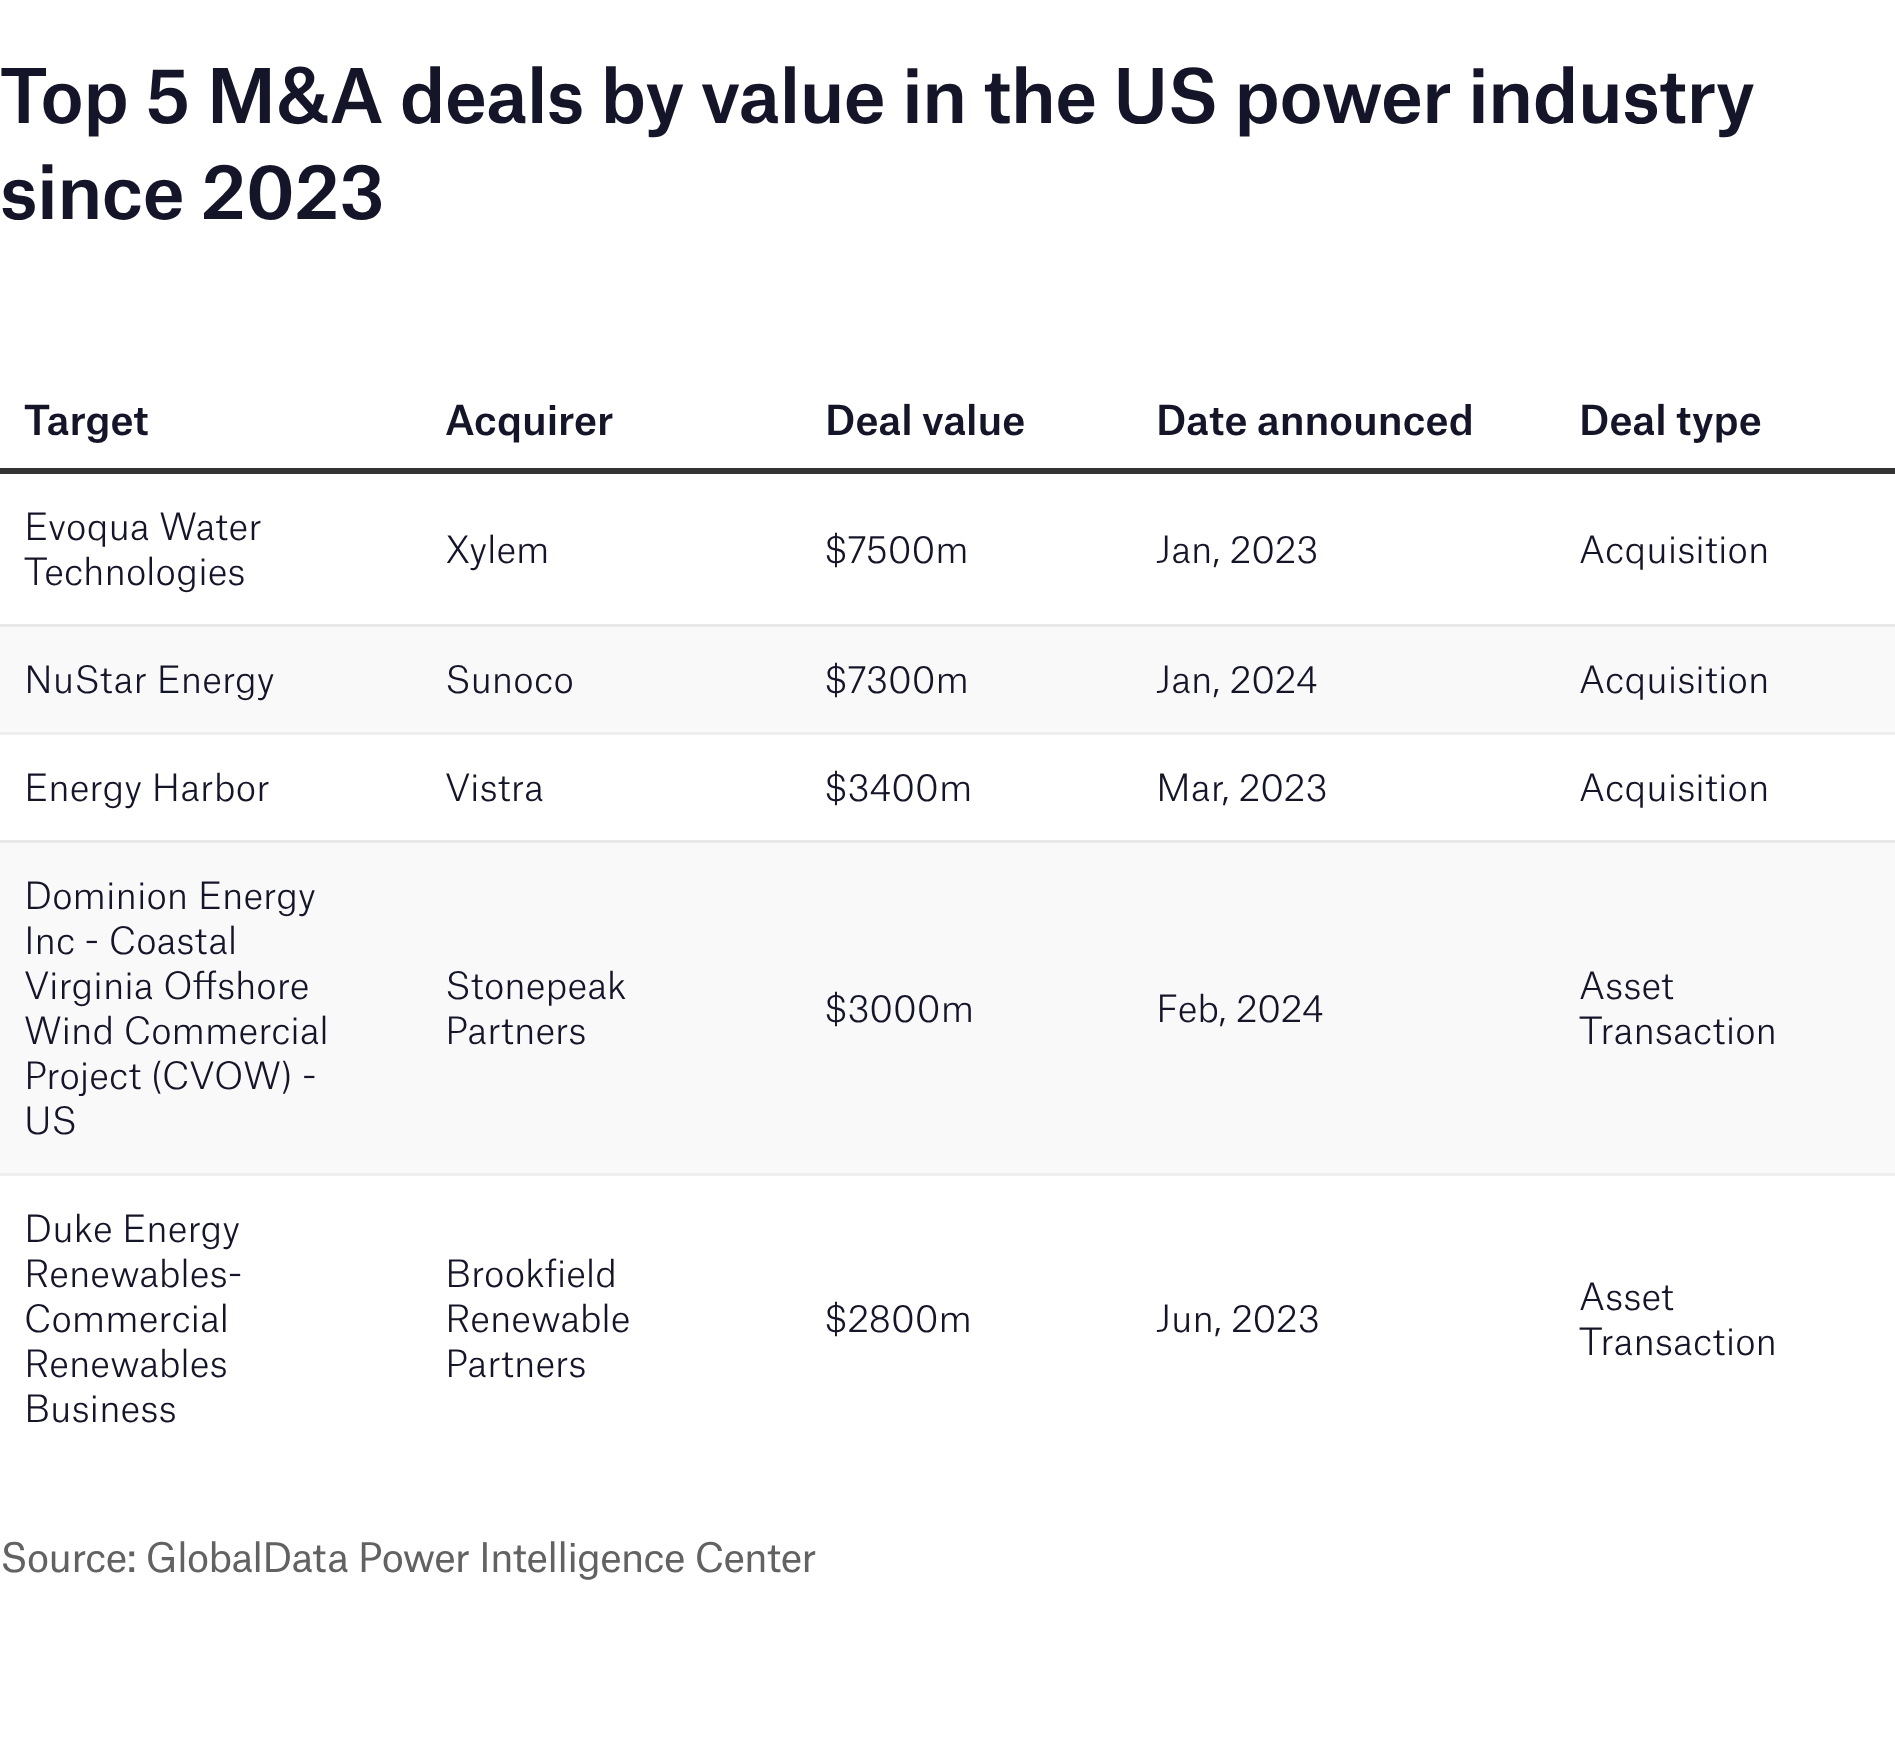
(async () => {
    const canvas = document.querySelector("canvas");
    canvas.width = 1895;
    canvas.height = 1743;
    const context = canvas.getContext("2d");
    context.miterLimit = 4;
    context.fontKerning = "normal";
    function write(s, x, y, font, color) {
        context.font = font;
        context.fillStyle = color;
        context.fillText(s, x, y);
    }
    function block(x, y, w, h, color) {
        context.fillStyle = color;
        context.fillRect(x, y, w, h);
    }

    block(0, 0, 1895, 1743, "rgb(255, 255, 255)");
    context.letterSpacing = "-0.7px";
    write("Top 5 M&A deals by value in the US power industry", 0, 123, "500 72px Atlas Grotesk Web", "rgb(21, 21, 41)");
    write("since 2023", 0, 219, "500 72px Atlas Grotesk Web", "rgb(21, 21, 41)");
    block(0, 468, 1895, 6, "rgb(51, 51, 51)");
    context.letterSpacing = "0px";
    write("Target", 24, 435, "500 39.5px Atlas Grotesk Web", "rgb(21, 21, 41)");
    write("Acquirer", 445, 435, "500 39.5px Atlas Grotesk Web", "rgb(21, 21, 41)");
    write("Deal value", 825, 435, "500 39.5px Atlas Grotesk Web", "rgb(21, 21, 41)");
    write("Date announced", 1156, 435, "500 39.5px Atlas Grotesk Web", "rgb(21, 21, 41)");
    write("Deal type", 1579, 435, "500 39.5px Atlas Grotesk Web", "rgb(21, 21, 41)");
    write("Evoqua Water", 24, 540, "300 36px Atlas Grotesk Web", "rgb(21, 21, 41)");
    write("Technologies", 24, 585, "300 36px Atlas Grotesk Web", "rgb(21, 21, 41)");
    write("Xylem", 445, 563, "300 36px Atlas Grotesk Web", "rgb(21, 21, 41)");
    write("$7500m", 825, 563, "300 36px Atlas Grotesk Web", "rgb(21, 21, 41)");
    write("Jan, 2023", 1156, 563, "300 36px Atlas Grotesk Web", "rgb(21, 21, 41)");
    write("Acquisition", 1579, 563, "300 36px Atlas Grotesk Web", "rgb(21, 21, 41)");
    block(0, 627, 1895, 105, "rgb(249, 249, 249)");
    block(0, 624, 1895, 3, "rgb(232, 232, 232)");
    write("NuStar Energy", 24, 693, "300 36px Atlas Grotesk Web", "rgb(21, 21, 41)");
    write("Sunoco", 445, 693, "300 36px Atlas Grotesk Web", "rgb(21, 21, 41)");
    write("$7300m", 825, 693, "300 36px Atlas Grotesk Web", "rgb(21, 21, 41)");
    write("Jan, 2024", 1156, 693, "300 36px Atlas Grotesk Web", "rgb(21, 21, 41)");
    write("Acquisition", 1579, 693, "300 36px Atlas Grotesk Web", "rgb(21, 21, 41)");
    block(0, 732, 1895, 3, "rgb(238, 238, 238)");
    write("Energy Harbor", 24, 801, "300 36px Atlas Grotesk Web", "rgb(21, 21, 41)");
    write("Vistra", 445, 801, "300 36px Atlas Grotesk Web", "rgb(21, 21, 41)");
    write("$3400m", 825, 801, "300 36px Atlas Grotesk Web", "rgb(21, 21, 41)");
    write("Mar, 2023", 1156, 801, "300 36px Atlas Grotesk Web", "rgb(21, 21, 41)");
    write("Acquisition", 1579, 801, "300 36px Atlas Grotesk Web", "rgb(21, 21, 41)");
    block(0, 843, 1895, 330, "rgb(249, 249, 249)");
    block(0, 840, 1895, 3, "rgb(232, 232, 232)");
    write("Dominion Energy", 24, 909, "300 36px Atlas Grotesk Web", "rgb(21, 21, 41)");
    write("Inc - Coastal", 24, 954, "300 36px Atlas Grotesk Web", "rgb(21, 21, 41)");
    write("Virginia Offshore", 24, 999, "300 36px Atlas Grotesk Web", "rgb(21, 21, 41)");
    write("Wind Commercial", 24, 1044, "300 36px Atlas Grotesk Web", "rgb(21, 21, 41)");
    write("Project (CVOW) -", 24, 1089, "300 36px Atlas Grotesk Web", "rgb(21, 21, 41)");
    write("US", 24, 1134, "300 36px Atlas Grotesk Web", "rgb(21, 21, 41)");
    write("Stonepeak", 445, 999, "300 36px Atlas Grotesk Web", "rgb(21, 21, 41)");
    write("Partners", 445, 1044, "300 36px Atlas Grotesk Web", "rgb(21, 21, 41)");
    write("$3000m", 825, 1022, "300 36px Atlas Grotesk Web", "rgb(21, 21, 41)");
    write("Feb, 2024", 1156, 1022, "300 36px Atlas Grotesk Web", "rgb(21, 21, 41)");
    write("Asset", 1579, 999, "300 36px Atlas Grotesk Web", "rgb(21, 21, 41)");
    write("Transaction", 1579, 1044, "300 36px Atlas Grotesk Web", "rgb(21, 21, 41)");
    block(0, 1173, 1895, 3, "rgb(238, 238, 238)");
    write("Duke Energy", 24, 1242, "300 36px Atlas Grotesk Web", "rgb(21, 21, 41)");
    write("Renewables-", 24, 1287, "300 36px Atlas Grotesk Web", "rgb(21, 21, 41)");
    write("Commercial", 24, 1332, "300 36px Atlas Grotesk Web", "rgb(21, 21, 41)");
    write("Renewables", 24, 1377, "300 36px Atlas Grotesk Web", "rgb(21, 21, 41)");
    write("Business", 24, 1422, "300 36px Atlas Grotesk Web", "rgb(21, 21, 41)");
    write("Brookfield", 445, 1287, "300 36px Atlas Grotesk Web", "rgb(21, 21, 41)");
    write("Renewable", 445, 1332, "300 36px Atlas Grotesk Web", "rgb(21, 21, 41)");
    write("Partners", 445, 1377, "300 36px Atlas Grotesk Web", "rgb(21, 21, 41)");
    write("$2800m", 825, 1332, "300 36px Atlas Grotesk Web", "rgb(21, 21, 41)");
    write("Jun, 2023", 1156, 1332, "300 36px Atlas Grotesk Web", "rgb(21, 21, 41)");
    write("Asset", 1579, 1310, "300 36px Atlas Grotesk Web", "rgb(21, 21, 41)");
    write("Transaction", 1579, 1355, "300 36px Atlas Grotesk Web", "rgb(21, 21, 41)");
    context.letterSpacing = "-0.8px";
    write("Source: GlobalData Power Intelligence Center", 0, 1572, "39px Atlas Grotesk Web", "rgb(98, 98, 98)");
})();
